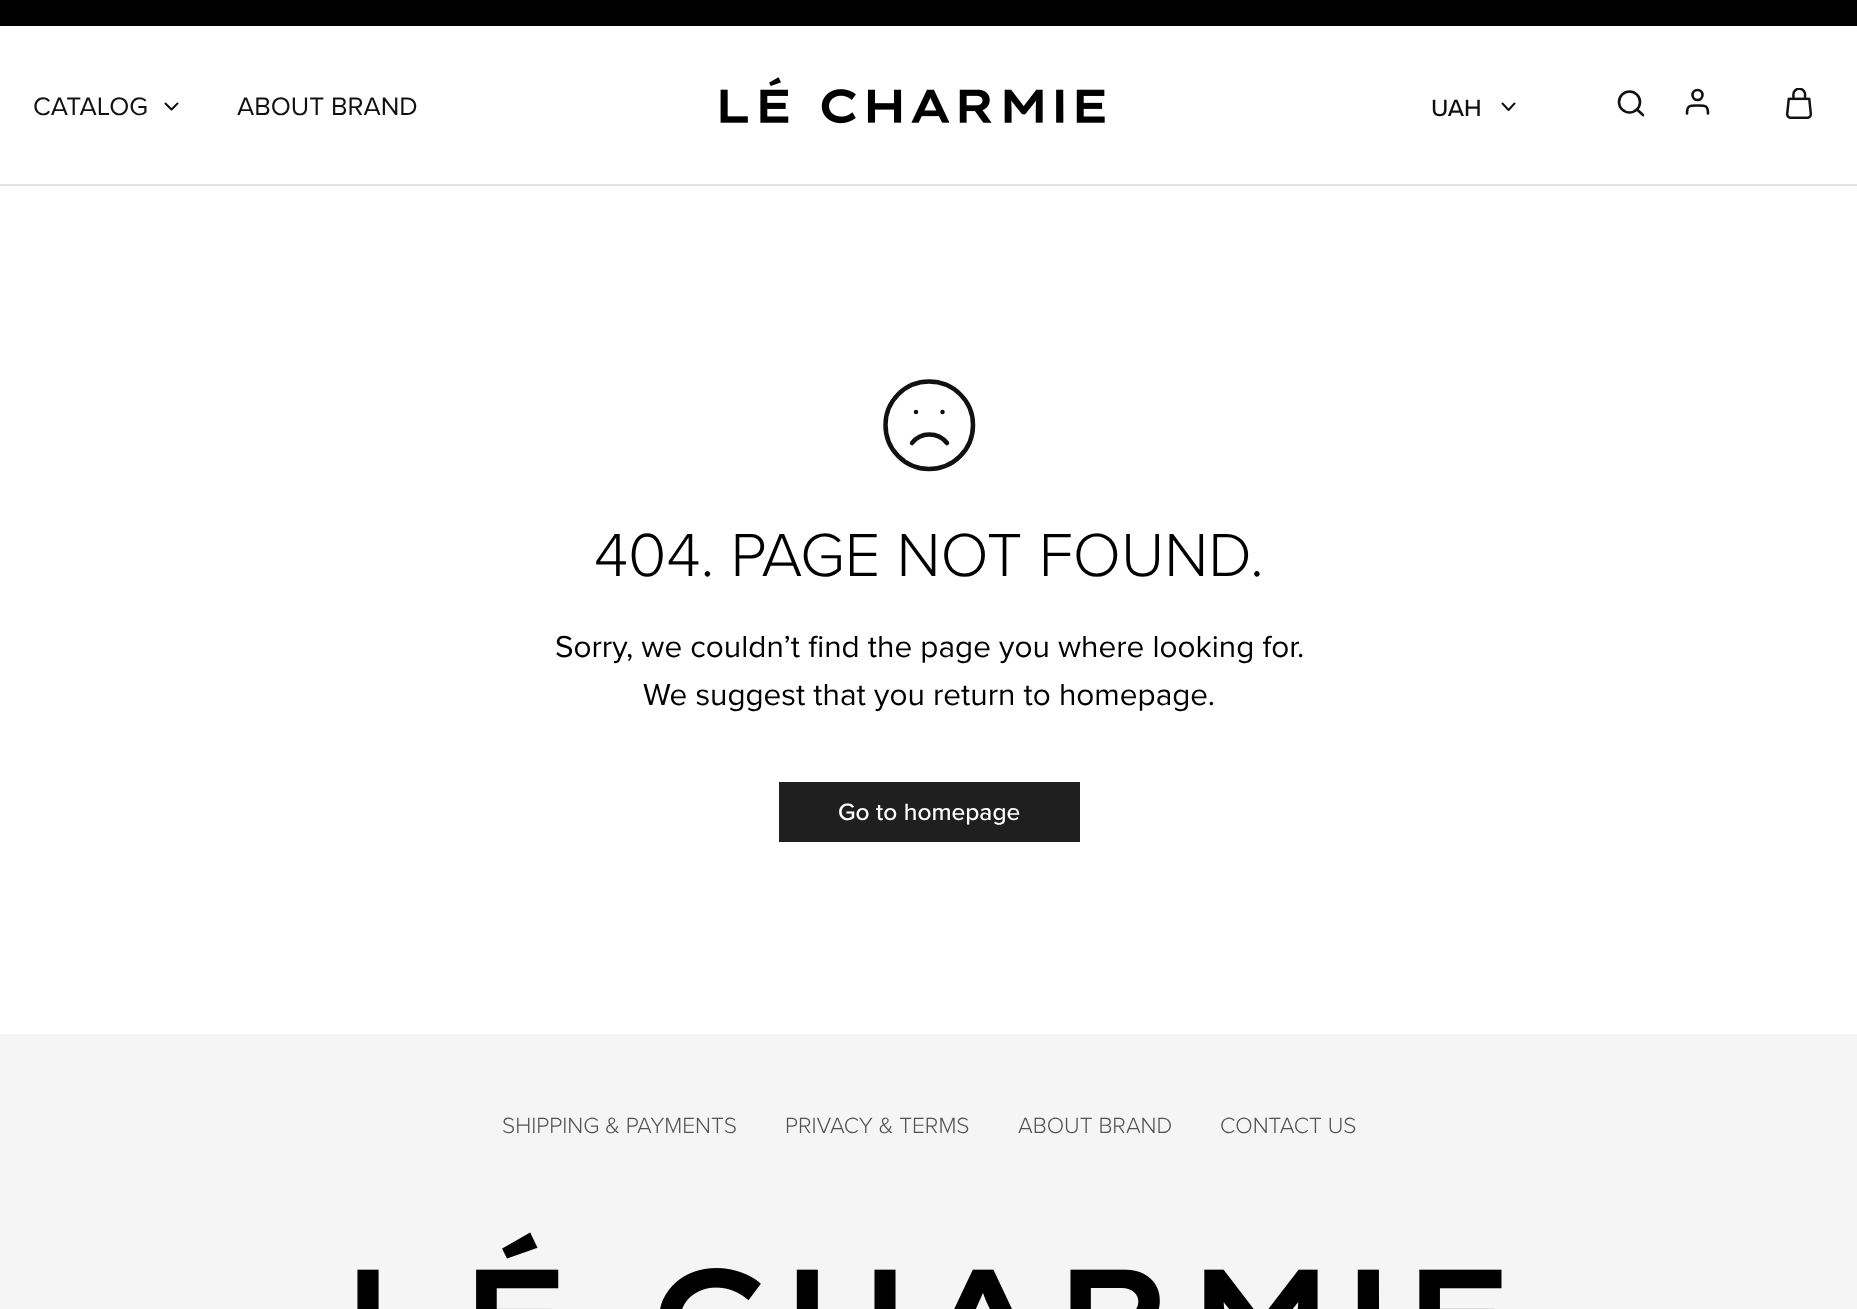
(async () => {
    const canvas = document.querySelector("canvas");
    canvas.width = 1857;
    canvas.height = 1309;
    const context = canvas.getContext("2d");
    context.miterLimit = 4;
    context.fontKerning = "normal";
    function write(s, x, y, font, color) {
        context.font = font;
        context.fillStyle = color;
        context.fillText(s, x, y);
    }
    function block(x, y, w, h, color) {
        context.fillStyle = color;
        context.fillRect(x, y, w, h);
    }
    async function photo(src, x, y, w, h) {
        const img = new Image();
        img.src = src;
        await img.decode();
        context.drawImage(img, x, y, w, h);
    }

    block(0, 0, 1857, 1309, "rgb(255, 255, 255)");
    block(0, 0, 1857, 26, "rgb(0, 0, 0)");
    block(0, 184, 1857, 2, "rgb(226, 226, 226)");
    write("CATALOG", 33, 115, "26.25px Proxima Nova", "rgb(17, 17, 17)");
    context.beginPath();
    context.moveTo(165.5, 103.5);
    context.lineTo(171.5, 109.5);
    context.lineTo(177.5, 103.5);
    context.strokeStyle = "rgb(17, 17, 17)";
    context.lineWidth = 2;
    context.lineCap = "round";
    context.lineJoin = "round";
    context.stroke();
    write("ABOUT BRAND", 237, 115, "26.25px Proxima Nova", "rgb(17, 17, 17)");
    await photo("media/1.png", 720, 77, 385, 47);
    write("UAH", 1431, 116, "500 24.5px Proxima Nova", "rgb(17, 17, 17)");
    context.beginPath();
    context.moveTo(1502.5, 103.5);
    context.lineTo(1508.5, 110);
    context.lineTo(1514.5, 103.5);
    context.stroke();
    context.beginPath();
    context.arc(1629.5, 102, 10.5, 0, Math.PI * 2);
    context.lineWidth = 2.6;
    context.stroke();
    context.beginPath();
    context.moveTo(1643, 115);
    context.lineTo(1637, 109.5);
    context.stroke();
    context.beginPath();
    context.moveTo(1708, 113.5);
    context.bezierCurveTo(1708, 105, 1705, 105.5, 1697.5, 105.5);
    context.bezierCurveTo(1690, 105.5, 1687, 105, 1687, 113.5);
    context.stroke();
    context.beginPath();
    context.arc(1697.5, 95, 5, 0, Math.PI * 2);
    context.stroke();
    await photo("media/2.png", 1785, 88, 28, 31);
    context.beginPath();
    context.moveTo(947, 443);
    context.bezierCurveTo(938, 431.5, 920.5, 431.5, 912, 443);
    context.moveTo(916, 412);
    context.lineTo(916, 412);
    context.moveTo(942.5, 412);
    context.lineTo(942.5, 412);
    context.moveTo(973, 425);
    context.bezierCurveTo(973, 449.5, 953.5, 469, 929, 469);
    context.bezierCurveTo(905, 469, 885.5, 449.5, 885.5, 425);
    context.bezierCurveTo(885.5, 401, 905, 381.5, 929, 381.5);
    context.bezierCurveTo(953.5, 381.5, 973, 401, 973, 425);
    context.closePath();
    context.lineWidth = 4.5;
    context.stroke();
    write("404. PAGE NOT FOUND.", 594, 576, "300 63px Proxima Nova", "rgb(0, 0, 0)");
    write("Sorry, we couldn’t find the page you where looking for.", 555, 657, "31.5px Proxima Nova", "rgb(0, 0, 0)");
    write("We suggest that you return to homepage.", 643, 705, "31.5px Proxima Nova", "rgb(0, 0, 0)");
    block(779, 782, 301, 60, "rgb(31, 31, 31)");
    write("Go to homepage", 838, 820, "500 24.5px Proxima Nova", "rgb(255, 255, 255)");
    block(0, 1034, 1857, 275, "rgb(245, 245, 245)");
    write("SHIPPING & PAYMENTS", 502, 1133, "300 22.75px Proxima Nova", "rgb(82, 82, 82)");
    write("PRIVACY & TERMS", 785, 1133, "300 22.75px Proxima Nova", "rgb(82, 82, 82)");
    write("ABOUT BRAND", 1018, 1133, "300 22.75px Proxima Nova", "rgb(82, 82, 82)");
    write("CONTACT US", 1220, 1133, "300 22.75px Proxima Nova", "rgb(82, 82, 82)");
    await photo("media/3.png", 357, 1232, 1145, 77);
})();
